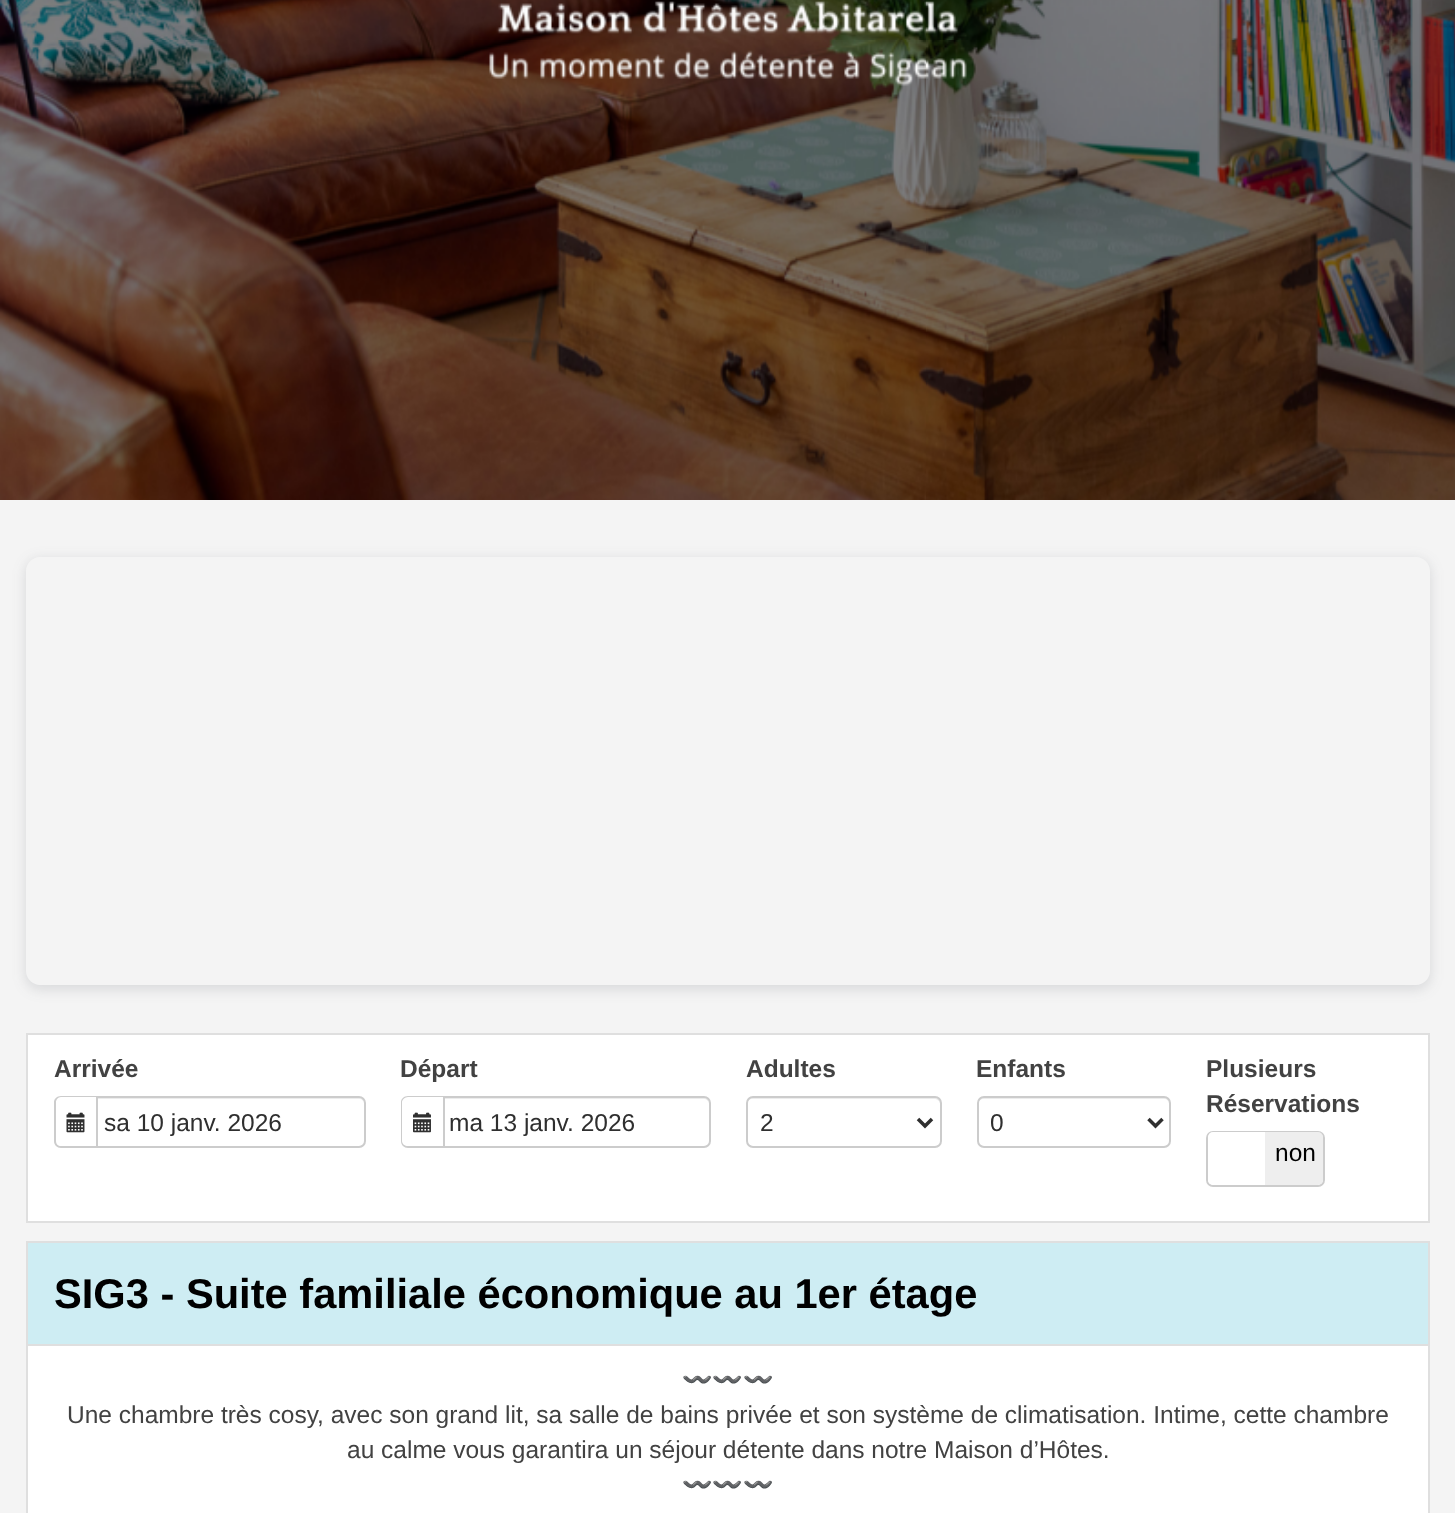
(async () => {
    const canvas = document.querySelector("canvas");
    canvas.width = 1455;
    canvas.height = 1513;
    const context = canvas.getContext("2d");
    context.miterLimit = 4;
    context.fontKerning = "normal";
    function write(s, x, y, font, color) {
        context.font = font;
        context.fillStyle = color;
        context.fillText(s, x, y);
    }
    function block(x, y, w, h, color) {
        context.fillStyle = color;
        context.fillRect(x, y, w, h);
    }
    async function photo(src, x, y, w, h) {
        const img = new Image();
        img.src = src;
        await img.decode();
        context.drawImage(img, x, y, w, h);
    }

    block(0, 0, 1455, 1513, "rgb(244, 244, 244)");
    await photo("media/1.png", 0, 0, 1455, 500);
    context.save();
    context.beginPath();
    context.moveTo(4, 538);
    context.lineTo(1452, 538);
    context.lineTo(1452, 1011);
    context.lineTo(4, 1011);
    context.closePath();
    context.moveTo(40, 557);
    context.lineTo(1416, 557);
    context.bezierCurveTo(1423.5, 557, 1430, 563.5, 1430, 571);
    context.lineTo(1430, 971);
    context.bezierCurveTo(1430, 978.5, 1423.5, 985, 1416, 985);
    context.lineTo(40, 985);
    context.bezierCurveTo(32.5, 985, 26, 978.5, 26, 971);
    context.lineTo(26, 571);
    context.bezierCurveTo(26, 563.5, 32.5, 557, 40, 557);
    context.closePath();
    context.clip("evenodd");
    context.fillStyle = "rgba(63, 69, 81, 0.16)";
    context.filter = "blur(7px)";
    context.beginPath();
    context.roundRect(26, 560, 1404, 429, 14);
    context.fill();
    context.filter = "none";
    context.restore();
    context.fillStyle = "rgb(255, 255, 255)";
    context.beginPath();
    context.rect(27, 1034, 1402, 188);
    context.fill();
    context.strokeStyle = "rgb(223, 223, 223)";
    context.lineWidth = 2;
    context.stroke();
    write("Arrivée", 54, 1077, "bold 24.5px Liberation Sans", "rgb(66, 66, 66)");
    context.fillStyle = "rgb(204, 204, 204)";
    context.beginPath();
    context.moveTo(61, 1096);
    context.lineTo(96, 1096);
    context.lineTo(96, 1148);
    context.lineTo(61, 1148);
    context.bezierCurveTo(57, 1148, 54, 1145, 54, 1141);
    context.lineTo(54, 1102);
    context.bezierCurveTo(54, 1099, 57, 1096, 61, 1096);
    context.closePath();
    context.moveTo(61, 1097);
    context.lineTo(96, 1097);
    context.lineTo(96, 1146);
    context.lineTo(61, 1146);
    context.bezierCurveTo(58, 1146, 56, 1144, 56, 1141);
    context.lineTo(56, 1102);
    context.bezierCurveTo(56, 1100, 58, 1097, 61, 1097);
    context.closePath();
    context.fill("evenodd");
    await photo("media/2.png", 66, 1112, 19, 21);
    context.fillStyle = "rgb(236, 236, 236)";
    context.beginPath();
    context.moveTo(98, 1099);
    context.lineTo(359, 1099);
    context.bezierCurveTo(362, 1099, 364, 1101, 364, 1104);
    context.bezierCurveTo(364, 1101, 363, 1097, 359, 1097);
    context.lineTo(98, 1097);
    context.closePath();
    context.fill();
    context.beginPath();
    context.roundRect(97, 1097, 268, 50, [0, 6, 6, 0]);
    context.strokeStyle = "rgb(204, 204, 204)";
    context.stroke();
    write("sa 10 janv. 2026", 104, 1131, "24.5px Liberation Sans", "rgb(47, 47, 47)");
    write("Départ", 400, 1077, "bold 24.5px Liberation Sans", "rgb(66, 66, 66)");
    context.fillStyle = "rgb(204, 204, 204)";
    context.beginPath();
    context.moveTo(408, 1096);
    context.lineTo(443, 1096);
    context.lineTo(443, 1148);
    context.lineTo(408, 1148);
    context.bezierCurveTo(404, 1148, 401, 1145, 401, 1141);
    context.lineTo(401, 1102);
    context.bezierCurveTo(401, 1099, 404, 1096, 408, 1096);
    context.closePath();
    context.moveTo(408, 1097);
    context.lineTo(443, 1097);
    context.lineTo(443, 1146);
    context.lineTo(408, 1146);
    context.bezierCurveTo(405, 1146, 402, 1144, 402, 1141);
    context.lineTo(402, 1102);
    context.bezierCurveTo(402, 1100, 405, 1097, 408, 1097);
    context.closePath();
    context.fill("evenodd");
    await photo("media/3.png", 413, 1112, 18, 21);
    context.fillStyle = "rgb(236, 236, 236)";
    context.beginPath();
    context.moveTo(445, 1097);
    context.lineTo(445, 1099);
    context.lineTo(704, 1099);
    context.bezierCurveTo(706, 1099, 709, 1101, 709, 1104);
    context.bezierCurveTo(709, 1101, 708, 1097, 704, 1097);
    context.closePath();
    context.fill();
    context.beginPath();
    context.roundRect(444, 1097, 266, 50, [0, 6, 6, 0]);
    context.stroke();
    write("ma 13 janv. 2026", 449, 1131, "24.5px Liberation Sans", "rgb(47, 47, 47)");
    write("Adultes", 746, 1077, "bold 24.5px Liberation Sans", "rgb(66, 66, 66)");
    context.fillStyle = "rgb(236, 236, 236)";
    context.beginPath();
    context.moveTo(752, 1099);
    context.lineTo(934, 1099);
    context.bezierCurveTo(937, 1099, 940, 1101, 940, 1104);
    context.lineTo(940, 1102);
    context.bezierCurveTo(940, 1099, 938, 1097, 935, 1097);
    context.lineTo(752, 1097);
    context.bezierCurveTo(749, 1097, 747, 1099, 747, 1102);
    context.lineTo(747, 1104);
    context.bezierCurveTo(747, 1101, 750, 1099, 752, 1099);
    context.closePath();
    context.fill();
    context.beginPath();
    context.roundRect(747, 1097, 194, 50, 6);
    context.stroke();
    context.beginPath();
    context.moveTo(918, 1119);
    context.lineTo(925, 1126);
    context.lineTo(932, 1119);
    context.strokeStyle = "rgb(47, 47, 47)";
    context.lineWidth = 3.5;
    context.stroke();
    write("2", 760, 1131, "24.5px Liberation Sans", "rgb(47, 47, 47)");
    write("Enfants", 976, 1077, "bold 24.5px Liberation Sans", "rgb(66, 66, 66)");
    context.fillStyle = "rgb(236, 236, 236)";
    context.beginPath();
    context.moveTo(984, 1099);
    context.lineTo(1164, 1099);
    context.bezierCurveTo(1167, 1099, 1169, 1101, 1169, 1104);
    context.lineTo(1169, 1102);
    context.bezierCurveTo(1169, 1099, 1167, 1097, 1164, 1097);
    context.lineTo(983, 1097);
    context.bezierCurveTo(980, 1097, 978, 1099, 978, 1102);
    context.lineTo(978, 1104);
    context.bezierCurveTo(978, 1101, 981, 1099, 984, 1099);
    context.closePath();
    context.fill();
    context.beginPath();
    context.roundRect(978, 1097, 192, 50, 6);
    context.strokeStyle = "rgb(204, 204, 204)";
    context.lineWidth = 2;
    context.stroke();
    context.beginPath();
    context.moveTo(1148.5, 1119);
    context.lineTo(1155.5, 1126);
    context.lineTo(1162.5, 1119);
    context.strokeStyle = "rgb(47, 47, 47)";
    context.lineWidth = 3.5;
    context.stroke();
    context.save();
    context.beginPath();
    context.rect(991, 1106, 145, 32);
    context.clip();
    write("0", 990, 1131, "24.5px Liberation Sans", "rgb(47, 47, 47)");
    context.restore();
    write("Plusieurs", 1206, 1077, "bold 24.5px Liberation Sans", "rgb(66, 66, 66)");
    write("Réservations", 1206, 1112, "bold 24.5px Liberation Sans", "rgb(66, 66, 66)");
    context.beginPath();
    context.roundRect(1207, 1132, 117, 54, 6);
    context.strokeStyle = "rgb(204, 204, 204)";
    context.lineWidth = 2;
    context.stroke();
    context.fillStyle = "rgb(255, 255, 255)";
    context.beginPath();
    context.roundRect(1208, 1132, 57, 53, [5, 0, 0, 5]);
    context.fill();
    context.fillStyle = "rgb(238, 238, 238)";
    context.beginPath();
    context.roundRect(1265, 1132, 58, 53, [0, 5, 5, 0]);
    context.fill();
    write("non", 1275, 1161, "24.5px Liberation Sans", "rgb(0, 0, 0)");
    context.strokeStyle = "rgb(223, 223, 223)";
    context.strokeRect(27, 1242, 1402, 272);
    block(28, 1243, 1400, 101, "rgb(206, 237, 243)");
    block(28, 1344, 1400, 2, "rgb(223, 223, 223)");
    write("SIG3 - Suite familiale économique au 1er étage", 54, 1308, "bold 41.65px Liberation Sans", "rgb(0, 0, 0)");
    block(28, 1346, 1400, 167, "rgb(255, 255, 255)");
    write("〰️〰️〰️", 682, 1388, "24.5px Noto Color Emoji", "rgb(66, 66, 66)");
    write("Une chambre très cosy, avec son grand lit, sa salle de bains privée et son système de climatisation. Intime, cette chambre", 67, 1423, "24.5px Liberation Sans", "rgb(66, 66, 66)");
    write("au calme vous garantira un séjour détente dans notre Maison d’Hôtes.", 347, 1458, "24.5px Liberation Sans", "rgb(66, 66, 66)");
    write("〰️〰️〰️", 682, 1493, "24.5px Noto Color Emoji", "rgb(66, 66, 66)");
})();
